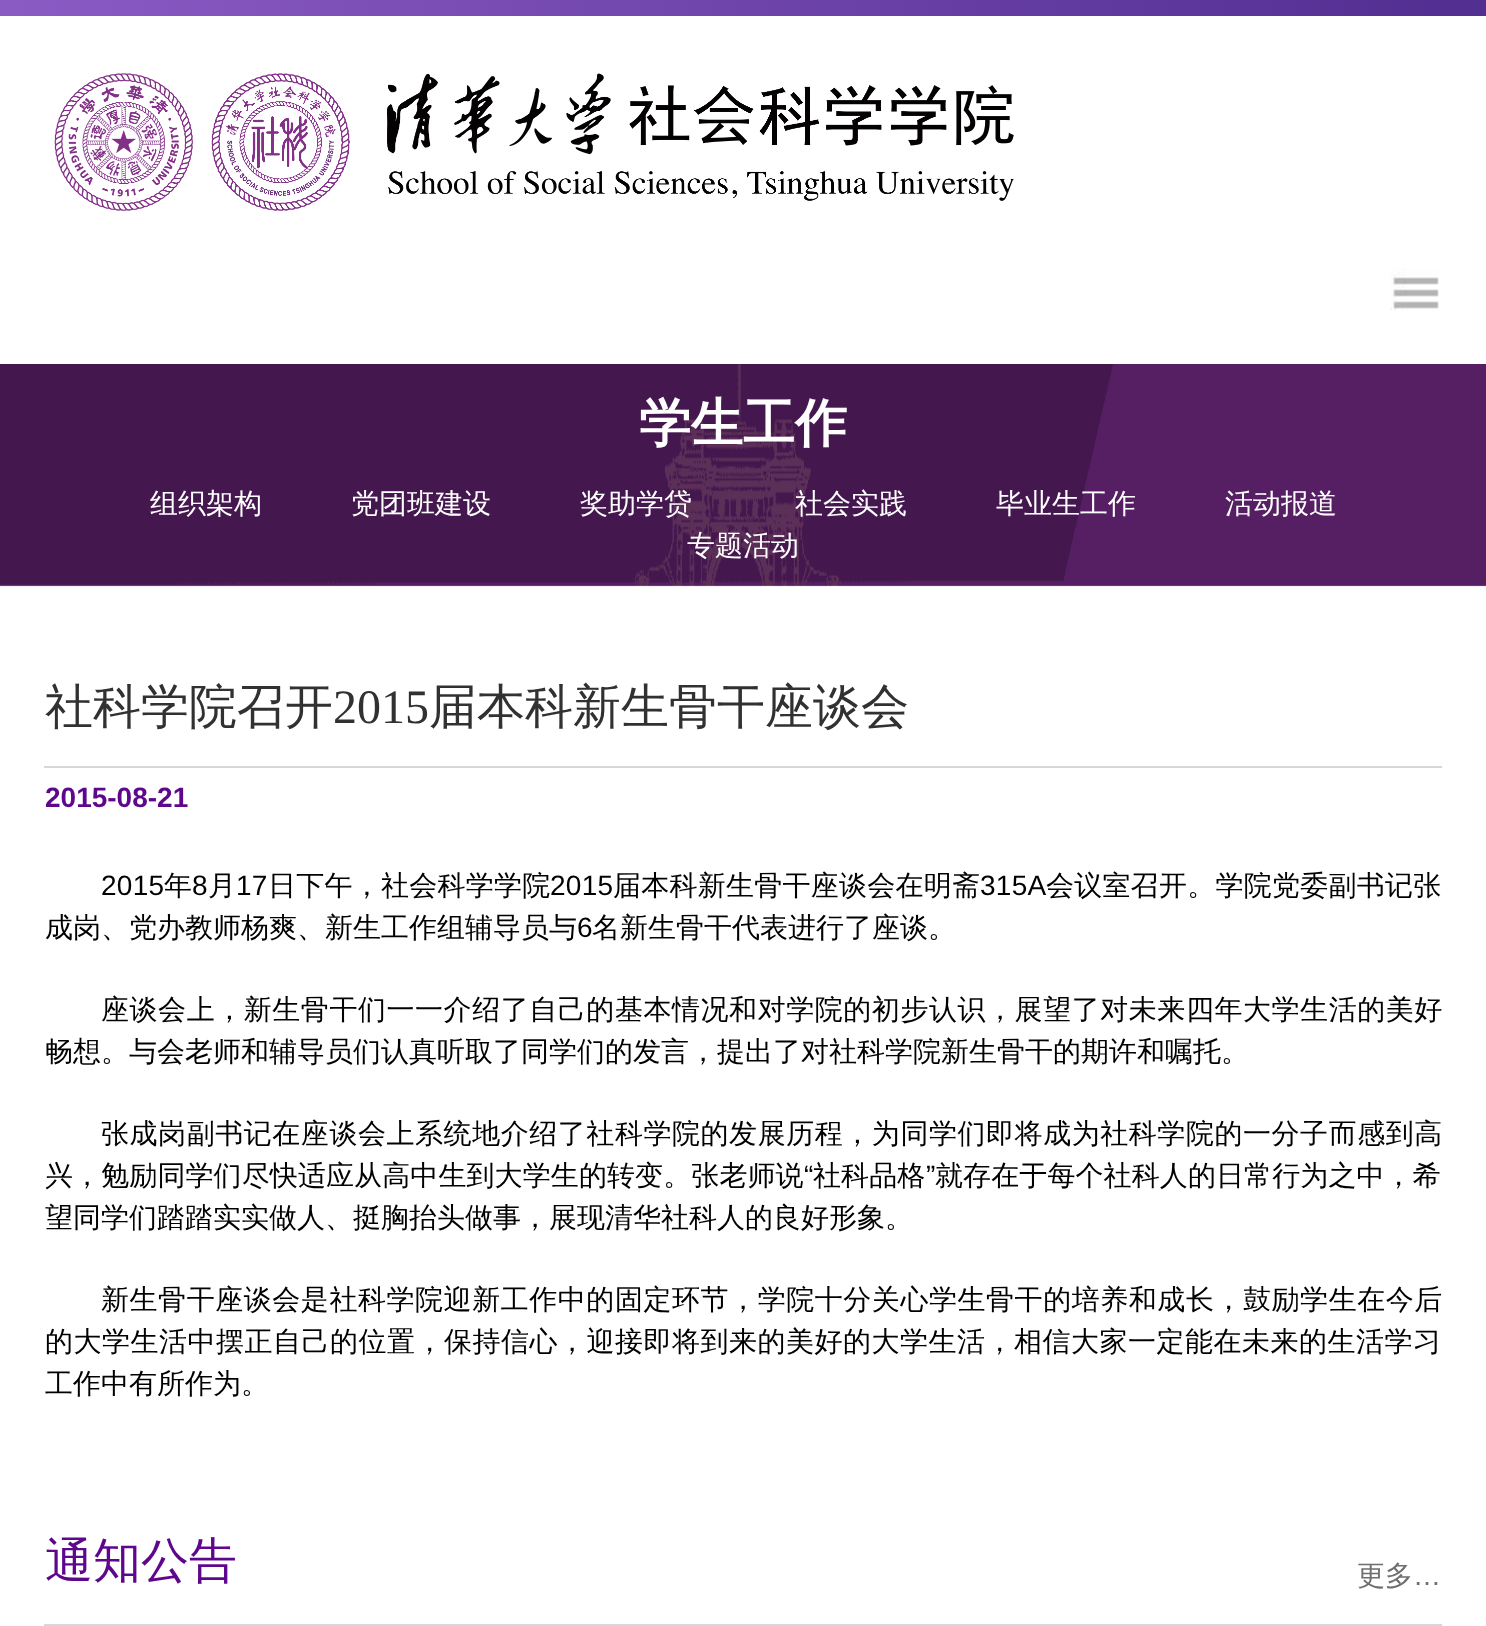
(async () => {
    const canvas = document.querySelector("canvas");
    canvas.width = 1486;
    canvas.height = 1626;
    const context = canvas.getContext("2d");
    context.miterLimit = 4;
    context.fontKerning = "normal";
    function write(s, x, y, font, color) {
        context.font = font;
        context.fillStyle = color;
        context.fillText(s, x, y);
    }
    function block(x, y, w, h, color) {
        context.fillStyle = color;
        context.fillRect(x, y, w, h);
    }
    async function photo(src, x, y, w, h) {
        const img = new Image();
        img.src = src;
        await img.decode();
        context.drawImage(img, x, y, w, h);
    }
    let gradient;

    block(0, 0, 1486, 1626, "rgb(255, 255, 255)");
    gradient = context.createLinearGradient(0, 8, 1486, 8);
    gradient.addColorStop(0, "rgb(139, 91, 196)");
    gradient.addColorStop(1, "rgb(82, 46, 145)");
    context.fillStyle = gradient;
    context.fillRect(0, 0, 1486, 16);
    await photo("media/1.png", 54, 73, 960, 138);
    await photo("media/2.png", 1390, 268, 49, 43);
    await photo("media/3.png", 0, 364, 1486, 223);
    write("学生工作", 639, 441, "bold 52px WenQuanYi Zen Hei", "rgb(255, 255, 255)");
    write("组织架构", 150, 513, "500 28px WenQuanYi Zen Hei", "rgb(255, 255, 255)");
    write("党团班建设", 351, 513, "500 28px WenQuanYi Zen Hei", "rgb(255, 255, 255)");
    write("奖助学贷", 580, 513, "500 28px WenQuanYi Zen Hei", "rgb(255, 255, 255)");
    write("社会实践", 795, 513, "500 28px WenQuanYi Zen Hei", "rgb(255, 255, 255)");
    write("毕业生工作", 996, 513, "500 28px WenQuanYi Zen Hei", "rgb(255, 255, 255)");
    write("活动报道", 1225, 513, "500 28px WenQuanYi Zen Hei", "rgb(255, 255, 255)");
    write("专题活动", 687, 555, "500 28px WenQuanYi Zen Hei", "rgb(255, 255, 255)");
    block(44, 766, 1398, 2, "rgb(215, 215, 215)");
    write("社科学院召开", 45, 723, "500 48px WenQuanYi Zen Hei", "rgb(49, 49, 49)");
    write("2015", 333, 723, "48px Liberation Serif", "rgb(49, 49, 49)");
    write("届本科新生骨干座谈会", 429, 723, "500 48px WenQuanYi Zen Hei", "rgb(49, 49, 49)");
    write("2015-08-21", 45, 807, "bold 28px Liberation Sans", "rgb(94, 6, 140)");
    context.letterSpacing = "0.25px";
    write("2015", 101, 895, "28px Liberation Sans", "rgb(0, 0, 0)");
    write("年", 164, 895, "500 28px WenQuanYi Zen Hei", "rgb(0, 0, 0)");
    write("8", 192, 895, "28px Liberation Sans", "rgb(0, 0, 0)");
    write("月", 208, 895, "500 28px WenQuanYi Zen Hei", "rgb(0, 0, 0)");
    write("17", 236, 895, "28px Liberation Sans", "rgb(0, 0, 0)");
    write("日下午，社会科学学院", 268, 895, "500 28px WenQuanYi Zen Hei", "rgb(0, 0, 0)");
    write("2015", 550, 895, "28px Liberation Sans", "rgb(0, 0, 0)");
    write("届本科新生骨干座谈会在明斋", 613, 895, "500 28px WenQuanYi Zen Hei", "rgb(0, 0, 0)");
    write("315A", 980, 895, "28px Liberation Sans", "rgb(0, 0, 0)");
    write("会议室召开。学院党委副书记张", 1046, 895, "500 28px WenQuanYi Zen Hei", "rgb(0, 0, 0)");
    context.letterSpacing = "0px";
    write("成岗、党办教师杨爽、新生工作组辅导员与", 45, 937, "500 28px WenQuanYi Zen Hei", "rgb(0, 0, 0)");
    write("6", 577, 937, "28px Liberation Sans", "rgb(0, 0, 0)");
    write("名新生骨干代表进行了座谈。", 592, 937, "500 28px WenQuanYi Zen Hei", "rgb(0, 0, 0)");
    context.letterSpacing = "0.55px";
    write("座谈会上，新生骨干们一一介绍了自己的基本情况和对学院的初步认识，展望了对未来四年大学生活的美好", 101, 1019, "500 28px WenQuanYi Zen Hei", "rgb(0, 0, 0)");
    context.letterSpacing = "0px";
    write("畅想。与会老师和辅导员们认真听取了同学们的发言，提出了对社科学院新生骨干的期许和嘱托。", 45, 1061, "500 28px WenQuanYi Zen Hei", "rgb(0, 0, 0)");
    context.letterSpacing = "0.55px";
    write("张成岗副书记在座谈会上系统地介绍了社科学院的发展历程，为同学们即将成为社科学院的一分子而感到高", 101, 1143, "500 28px WenQuanYi Zen Hei", "rgb(0, 0, 0)");
    context.letterSpacing = "0.1px";
    write("兴，勉励同学们尽快适应从高中生到大学生的转变。张老师说", 45, 1185, "500 28px WenQuanYi Zen Hei", "rgb(0, 0, 0)");
    write("“", 804, 1185, "28px Liberation Sans", "rgb(0, 0, 0)");
    write("社科品格", 813, 1185, "500 28px WenQuanYi Zen Hei", "rgb(0, 0, 0)");
    write("”", 926, 1185, "28px Liberation Sans", "rgb(0, 0, 0)");
    write("就存在于每个社科人的日常行为之中，希", 935, 1185, "500 28px WenQuanYi Zen Hei", "rgb(0, 0, 0)");
    context.letterSpacing = "0px";
    write("望同学们踏踏实实做人、挺胸抬头做事，展现清华社科人的良好形象。", 45, 1227, "500 28px WenQuanYi Zen Hei", "rgb(0, 0, 0)");
    context.letterSpacing = "0.55px";
    write("新生骨干座谈会是社科学院迎新工作中的固定环节，学院十分关心学生骨干的培养和成长，鼓励学生在今后", 101, 1309, "500 28px WenQuanYi Zen Hei", "rgb(0, 0, 0)");
    context.letterSpacing = "0.5px";
    write("的大学生活中摆正自己的位置，保持信心，迎接即将到来的美好的大学生活，相信大家一定能在未来的生活学习", 45, 1351, "500 28px WenQuanYi Zen Hei", "rgb(0, 0, 0)");
    context.letterSpacing = "0px";
    write("工作中有所作为。", 45, 1393, "500 28px WenQuanYi Zen Hei", "rgb(0, 0, 0)");
    block(44, 1624, 1398, 2, "rgb(215, 215, 215)");
    write("通知公告", 45, 1577, "500 48px WenQuanYi Zen Hei", "rgb(94, 6, 140)");
    write("更多", 1357, 1585, "500 28px WenQuanYi Zen Hei", "rgb(111, 111, 111)");
    write("…", 1413, 1585, "28px Liberation Sans", "rgb(111, 111, 111)");
})();
